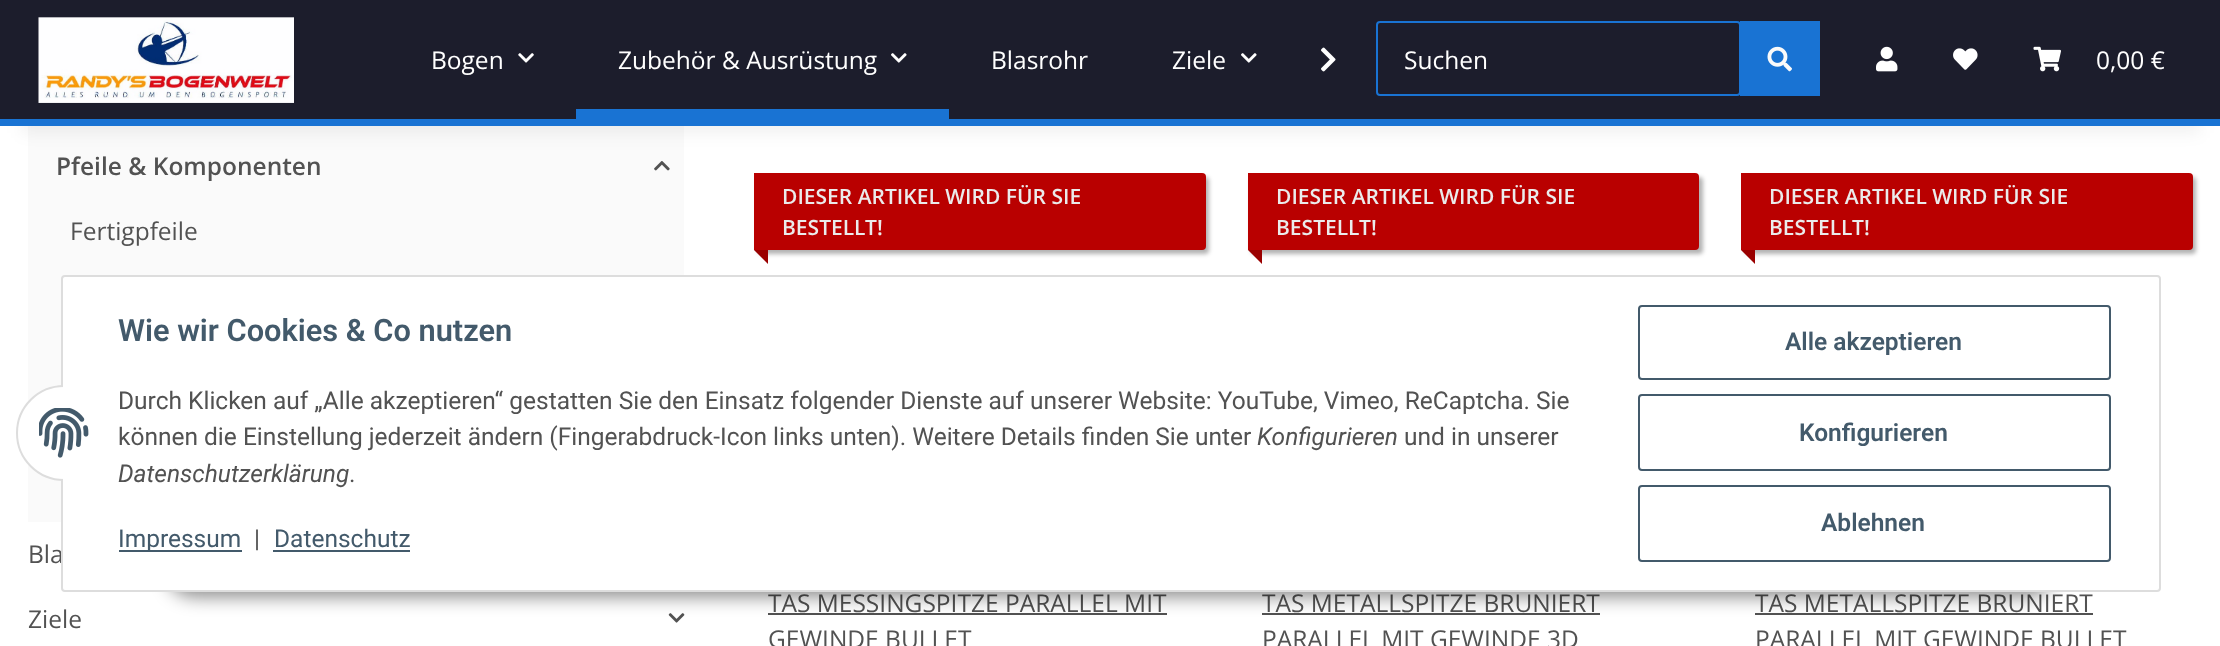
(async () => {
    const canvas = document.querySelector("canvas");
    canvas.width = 2220;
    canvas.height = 646;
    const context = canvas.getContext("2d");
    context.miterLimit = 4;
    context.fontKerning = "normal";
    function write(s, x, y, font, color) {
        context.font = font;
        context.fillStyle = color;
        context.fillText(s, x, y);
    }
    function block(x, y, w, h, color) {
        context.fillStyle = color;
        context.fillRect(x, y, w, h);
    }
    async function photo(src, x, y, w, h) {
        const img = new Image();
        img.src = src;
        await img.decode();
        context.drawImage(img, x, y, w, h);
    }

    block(0, 0, 2220, 646, "rgb(255, 255, 255)");
    block(28, 126, 656, 396, "rgb(250, 250, 250)");
    context.fillStyle = "rgba(0, 0, 0, 0.06)";
    context.filter = "blur(8px)";
    context.beginPath();
    context.rect(21, 49, 2179, 84);
    context.fill();
    context.filter = "none";
    block(0, 0, 2220, 119, "rgb(28, 29, 44)");
    block(0, 119, 2220, 7, "rgb(25, 115, 211)");
    await photo("media/1.png", 38, 17, 256, 86);
    write("Bogen", 431, 69, "24.5px Open Sans", "rgb(255, 255, 255)");
    await photo("media/2.png", 518, 53, 16, 10);
    write("Zubehör & Ausrüstung", 618, 69, "24.5px Open Sans", "rgb(255, 255, 255)");
    await photo("media/3.png", 891, 53, 16, 10);
    block(576, 109, 373, 10, "rgb(25, 115, 211)");
    write("Blasrohr", 991, 69, "24.5px Open Sans", "rgb(255, 255, 255)");
    write("Ziele", 1172, 69, "24.5px Open Sans", "rgb(255, 255, 255)");
    await photo("media/3.png", 1241, 53, 16, 10);
    await photo("media/4.png", 1321, 47, 15, 25);
    context.beginPath();
    context.roundRect(1377, 22, 363, 73, 3);
    context.strokeStyle = "rgb(25, 115, 211)";
    context.lineWidth = 2;
    context.stroke();
    write("Suchen", 1404, 69, "24.5px Open Sans", "rgb(255, 255, 255)");
    block(1740, 21, 80, 75, "rgb(25, 115, 211)");
    await photo("media/5.png", 1767, 46, 25, 26);
    await photo("media/6.png", 1876, 46, 22, 26);
    await photo("media/7.png", 1953, 48, 25, 22);
    await photo("media/8.png", 2033, 46, 28, 26);
    write("0,00 €", 2096, 69, "24.5px Open Sans", "rgb(255, 255, 255)");
    write("Pfeile & Komponenten", 56, 175, "600 24.5px Open Sans", "rgb(82, 82, 82)");
    await photo("media/9.png", 654, 161, 16, 10);
    write("Fertigpfeile", 70, 240, "24.5px Open Sans", "rgb(82, 82, 82)");
    write("Bla", 28, 563, "24.5px Open Sans", "rgb(82, 82, 82)");
    write("Ziele", 28, 628, "24.5px Open Sans", "rgb(82, 82, 82)");
    await photo("media/10.png", 668, 613, 17, 10);
    context.fillStyle = "rgba(0, 0, 0, 0.3)";
    context.filter = "blur(2px)";
    context.beginPath();
    context.roundRect(758, 177, 451, 77, 4);
    context.fill();
    context.filter = "none";
    context.fillStyle = "rgb(185, 0, 0)";
    context.beginPath();
    context.roundRect(754, 173, 452, 77, [0, 4, 4, 0]);
    context.fill();
    write("DIESER ARTIKEL WIRD FÜR SIE", 782, 204, "600 21px Open Sans", "rgb(235, 235, 235)");
    write("BESTELLT!", 782, 235, "600 21px Open Sans", "rgb(235, 235, 235)");
    context.fillStyle = "rgb(154, 0, 0)";
    context.beginPath();
    context.moveTo(768, 250);
    context.lineTo(768, 264);
    context.lineTo(754, 250);
    context.closePath();
    context.fill();
    write("TAS MESSINGSPITZE PARALLEL MIT", 768, 612, "24.5px Open Sans", "rgb(82, 82, 82)");
    block(768, 613, 399, 2, "rgb(82, 82, 82)");
    write("GEWINDE BULLET", 768, 648, "24.5px Open Sans", "rgb(82, 82, 82)");
    context.fillStyle = "rgba(0, 0, 0, 0.3)";
    context.filter = "blur(2px)";
    context.beginPath();
    context.roundRect(1251, 177, 452, 77, 4);
    context.fill();
    context.filter = "none";
    context.fillStyle = "rgb(185, 0, 0)";
    context.beginPath();
    context.roundRect(1248, 173, 451, 77, [0, 4, 4, 0]);
    context.fill();
    write("DIESER ARTIKEL WIRD FÜR SIE", 1276, 204, "600 21px Open Sans", "rgb(235, 235, 235)");
    write("BESTELLT!", 1276, 235, "600 21px Open Sans", "rgb(235, 235, 235)");
    context.fillStyle = "rgb(154, 0, 0)";
    context.beginPath();
    context.moveTo(1262, 250);
    context.lineTo(1262, 264);
    context.lineTo(1248, 250);
    context.closePath();
    context.fill();
    write("TAS METALLSPITZE BRÜNIERT", 1262, 612, "24.5px Open Sans", "rgb(82, 82, 82)");
    block(1262, 613, 338, 2, "rgb(82, 82, 82)");
    write("PARALLEL MIT GEWINDE 3D", 1262, 648, "24.5px Open Sans", "rgb(82, 82, 82)");
    context.fillStyle = "rgba(0, 0, 0, 0.3)";
    context.filter = "blur(2px)";
    context.beginPath();
    context.roundRect(1745, 177, 451, 77, 4);
    context.fill();
    context.filter = "none";
    context.fillStyle = "rgb(185, 0, 0)";
    context.beginPath();
    context.roundRect(1741, 173, 452, 77, [0, 4, 4, 0]);
    context.fill();
    write("DIESER ARTIKEL WIRD FÜR SIE", 1769, 204, "600 21px Open Sans", "rgb(235, 235, 235)");
    write("BESTELLT!", 1769, 235, "600 21px Open Sans", "rgb(235, 235, 235)");
    context.fillStyle = "rgb(154, 0, 0)";
    context.beginPath();
    context.moveTo(1755, 250);
    context.lineTo(1755, 264);
    context.lineTo(1741, 250);
    context.closePath();
    context.fill();
    write("TAS METALLSPITZE BRÜNIERT", 1755, 612, "24.5px Open Sans", "rgb(82, 82, 82)");
    block(1755, 613, 338, 2, "rgb(82, 82, 82)");
    write("PARALLEL MIT GEWINDE BULLET", 1755, 648, "24.5px Open Sans", "rgb(82, 82, 82)");
    context.fillStyle = "rgba(0, 0, 0, 0.45)";
    context.filter = "blur(9px)";
    context.beginPath();
    context.roundRect(166, 541, 1889, 56, 28);
    context.fill();
    context.filter = "none";
    context.fillStyle = "rgb(255, 255, 255)";
    context.beginPath();
    context.roundRect(62, 276, 2098, 315, 3);
    context.fill();
    context.strokeStyle = "rgb(221, 221, 221)";
    context.stroke();
    context.beginPath();
    context.arc(64, 433, 47, 0, Math.PI * 2);
    context.fill();
    context.stroke();
    block(63, 385, 49, 96, "rgb(255, 255, 255)");
    await photo("media/11.png", 39, 408, 50, 50);
    write("Wie wir Cookies & Co nutzen", 118, 341, "600 30.75px Roboto", "rgb(67, 90, 107)");
    write("Durch Klicken auf „Alle akzeptieren“ gestatten Sie den Einsatz folgender Dienste auf unserer Website: YouTube, Vimeo, ReCaptcha. Sie", 118, 409, "24.5px Roboto", "rgb(82, 82, 82)");
    write("können die Einstellung jederzeit ändern (Fingerabdruck-Icon links unten). Weitere Details finden Sie unter", 118, 445, "24.5px Roboto", "rgb(82, 82, 82)");
    write("Konfigurieren", 1257, 445, "italic 24.5px Roboto", "rgb(82, 82, 82)");
    write("und in unserer", 1404, 445, "24.5px Roboto", "rgb(82, 82, 82)");
    write("Datenschutzerklärung", 118, 482, "italic 24.5px Roboto", "rgb(82, 82, 82)");
    write(".", 349, 482, "24.5px Roboto", "rgb(82, 82, 82)");
    block(119, 550, 123, 2, "rgb(67, 90, 107)");
    write("Impressum", 118, 547, "24.5px Roboto", "rgb(67, 90, 107)");
    write("|", 254, 547, "24.5px Roboto", "rgb(82, 82, 82)");
    write("Datenschutz", 274, 547, "24.5px Roboto", "rgb(67, 90, 107)");
    block(273, 550, 137, 2, "rgb(67, 90, 107)");
    context.beginPath();
    context.roundRect(1639, 306, 471, 73, 3);
    context.strokeStyle = "rgb(67, 90, 107)";
    context.stroke();
    write("Alle akzeptieren", 1785, 350, "600 24.5px Roboto", "rgb(67, 90, 107)");
    context.beginPath();
    context.roundRect(1639, 395, 471, 75, 3);
    context.stroke();
    write("Konfigurieren", 1799, 441, "600 24.5px Roboto", "rgb(67, 90, 107)");
    context.beginPath();
    context.roundRect(1639, 486, 471, 75, 3);
    context.stroke();
    write("Ablehnen", 1821, 531, "600 24.5px Roboto", "rgb(67, 90, 107)");
})();
